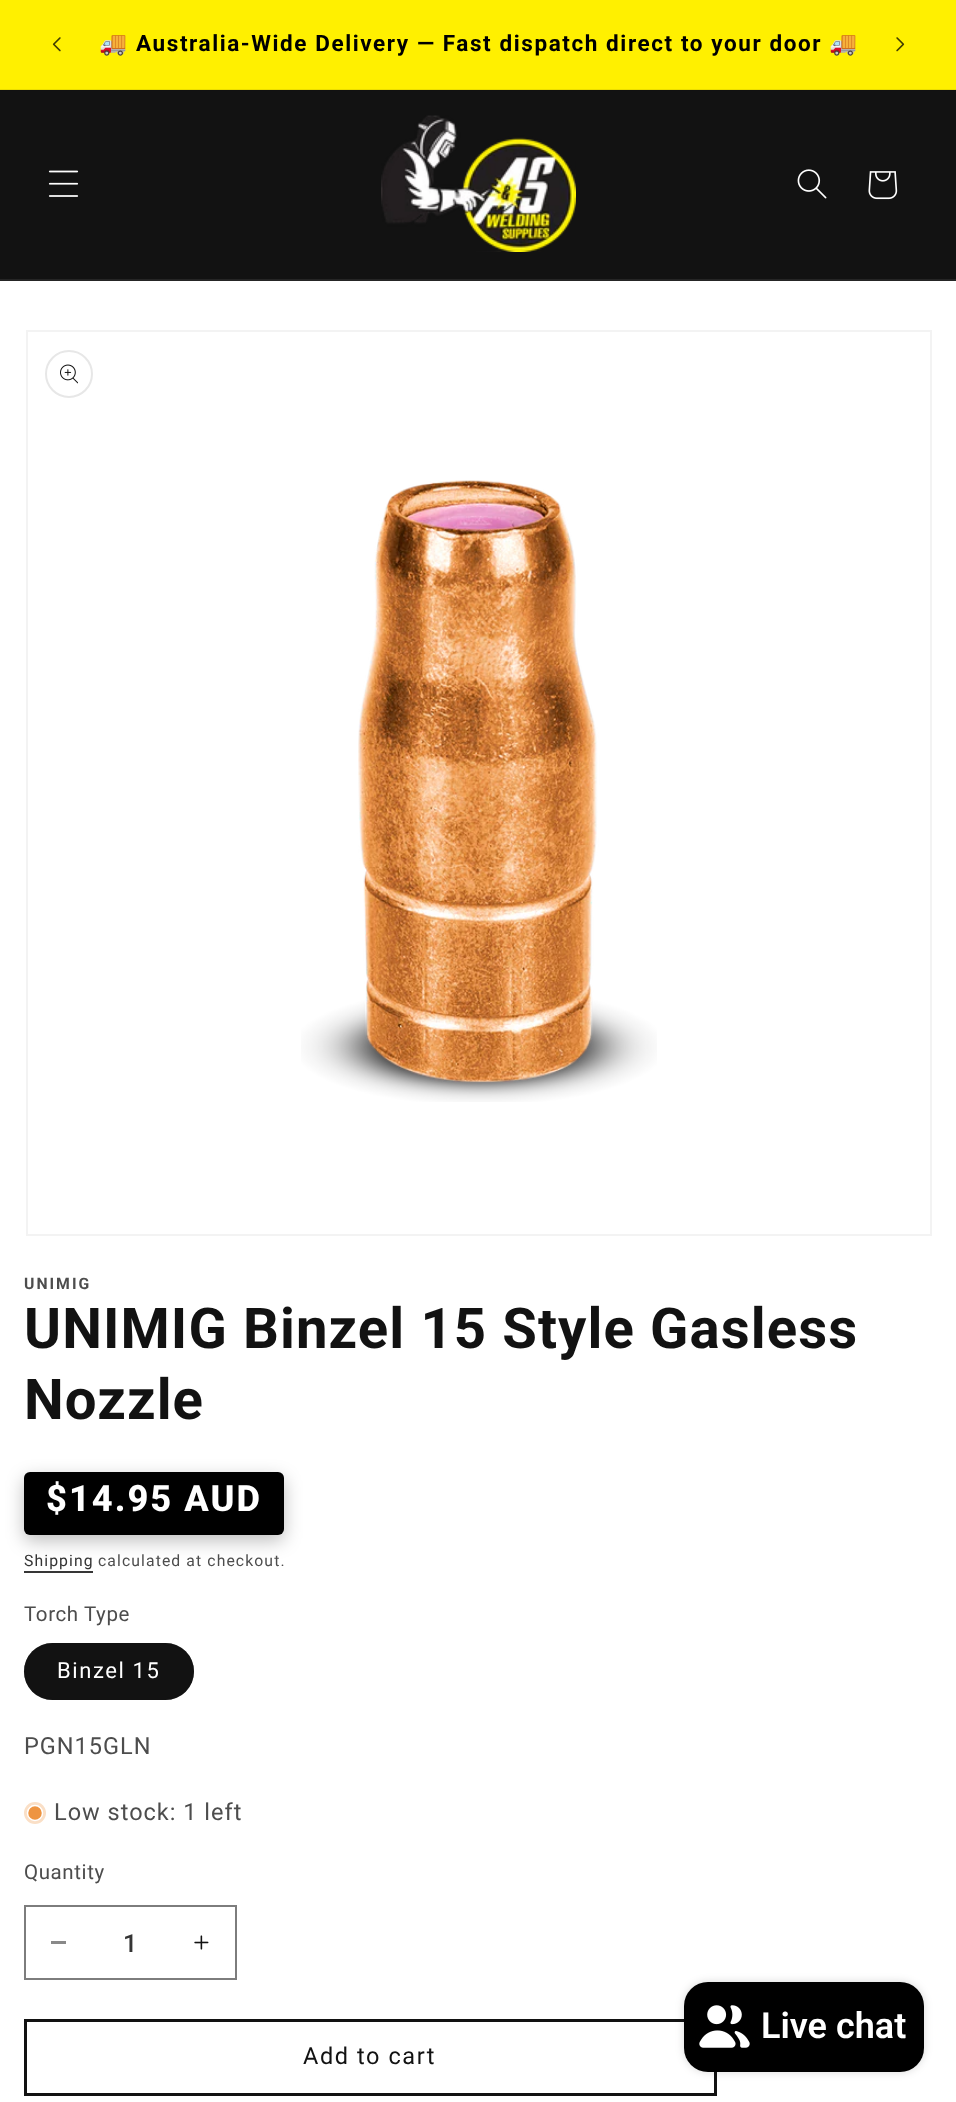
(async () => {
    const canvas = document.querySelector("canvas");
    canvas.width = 956;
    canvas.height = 2102;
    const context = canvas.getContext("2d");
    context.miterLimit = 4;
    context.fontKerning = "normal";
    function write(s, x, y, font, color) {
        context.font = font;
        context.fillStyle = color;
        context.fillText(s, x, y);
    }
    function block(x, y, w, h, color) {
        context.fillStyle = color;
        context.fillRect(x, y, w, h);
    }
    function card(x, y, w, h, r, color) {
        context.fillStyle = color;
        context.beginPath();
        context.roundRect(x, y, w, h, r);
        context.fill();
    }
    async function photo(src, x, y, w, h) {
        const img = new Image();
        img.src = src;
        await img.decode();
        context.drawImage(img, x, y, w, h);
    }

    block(0, 0, 956, 2102, "rgb(255, 255, 255)");
    block(0, 0, 956, 89, "rgb(255, 240, 0)");
    block(0, 89, 956, 1, "rgb(235, 221, 0)");
    await photo("media/1.png", 52, 37, 9, 15);
    context.letterSpacing = "1.58px";
    write("🚚", 99, 51, "bold 22.5px Noto Color Emoji", "rgb(0, 0, 0)");
    write("Australia-Wide Delivery — Fast dispatch direct to your door", 136, 51, "bold 22.5px Roboto", "rgb(0, 0, 0)");
    write("🚚", 829, 51, "bold 22.5px Noto Color Emoji", "rgb(0, 0, 0)");
    await photo("media/2.png", 896, 37, 9, 15);
    block(0, 91, 956, 188, "rgb(18, 18, 18)");
    block(0, 90, 956, 1, "rgb(17, 17, 17)");
    block(0, 279, 956, 2, "rgb(37, 37, 37)");
    await photo("media/3.png", 48, 170, 31, 27);
    await photo("media/4.png", 381, 115, 195, 137);
    await photo("media/5.png", 797, 169, 30, 30);
    await photo("media/6.png", 868, 171, 30, 29);
    context.strokeStyle = "rgb(243, 243, 243)";
    context.lineWidth = 2;
    context.strokeRect(27, 331, 904, 904);
    context.beginPath();
    context.arc(69, 374, 23, 0, Math.PI * 2);
    context.strokeStyle = "rgb(231, 231, 231)";
    context.stroke();
    await photo("media/7.png", 60, 364, 18, 20);
    await photo("media/8.png", 301, 480, 356, 622);
    context.letterSpacing = "2px";
    write("UNIMIG", 24, 1289, "bold 15.75px Roboto", "rgb(77, 77, 77)");
    context.letterSpacing = "1.1px";
    write("UNIMIG Binzel 15 Style Gasless", 24, 1348, "bold 56.25px Roboto", "rgb(18, 18, 18)");
    write("Nozzle", 24, 1419, "bold 56.25px Roboto", "rgb(18, 18, 18)");
    context.fillStyle = "rgba(0, 0, 0, 0.25)";
    context.filter = "blur(9px)";
    context.beginPath();
    context.roundRect(24, 1478, 260, 63, 6);
    context.fill();
    context.filter = "none";
    card(24, 1472, 260, 63, 6, "rgb(0, 0, 0)");
    context.letterSpacing = "2px";
    write("$14.95 AUD", 46, 1511, "800 36.25px Roboto", "rgb(255, 255, 255)");
    context.letterSpacing = "1.1px";
    write("Shipping", 24, 1566, "15.75px Roboto", "rgb(53, 53, 53)");
    block(24, 1571, 69, 2, "rgb(54, 54, 54)");
    write("calculated at checkout.", 98, 1566, "15.75px Roboto", "rgb(77, 77, 77)");
    context.letterSpacing = "0.6px";
    write("Torch Type", 24, 1621, "20.5px Roboto", "rgb(77, 77, 77)");
    card(24, 1643, 170, 57, 28.5, "rgb(18, 18, 18)");
    context.beginPath();
    context.roundRect(25, 1644, 168, 55, 27.5);
    context.strokeStyle = "rgba(18, 18, 18, 0.55)";
    context.stroke();
    context.letterSpacing = "1.58px";
    write("Binzel 15", 57, 1678, "22px Roboto", "rgb(255, 255, 255)");
    context.letterSpacing = "1px";
    write("PGN15GLN", 24, 1754, "23.5px Roboto", "rgb(77, 77, 77)");
    context.fillStyle = "rgb(250, 223, 198)";
    context.beginPath();
    context.arc(35, 1813, 11, 0, Math.PI * 2);
    context.fill();
    context.fillStyle = "rgb(238, 148, 65)";
    context.beginPath();
    context.arc(35, 1813, 7.5, 0, Math.PI * 2);
    context.fill();
    context.strokeStyle = "rgb(255, 255, 255)";
    context.lineWidth = 1.5;
    context.stroke();
    write("Low stock: 1 left", 54, 1820, "23.5px Roboto", "rgb(77, 77, 77)");
    context.letterSpacing = "0.6px";
    write("Quantity", 24, 1879, "20.5px Roboto", "rgb(77, 77, 77)");
    block(51, 1941, 15, 3, "rgb(137, 137, 137)");
    await photo("media/9.png", 194, 1935, 15, 15);
    context.strokeStyle = "rgb(125, 125, 125)";
    context.lineWidth = 2;
    context.strokeRect(25, 1906, 211, 73);
    context.letterSpacing = "0px";
    write("1", 123, 1952, "500 25px Roboto", "rgb(53, 53, 53)");
    context.strokeStyle = "rgb(18, 18, 18)";
    context.lineWidth = 3;
    context.strokeRect(25.5, 2020.5, 690, 74);
    context.letterSpacing = "1.58px";
    write("Add to cart", 303, 2064, "23.5px Roboto", "rgb(18, 18, 18)");
    context.fillStyle = "rgba(0, 0, 0, 0.15)";
    context.filter = "blur(4px)";
    context.beginPath();
    context.roundRect(684, 1982, 240, 90, 24);
    context.fill();
    context.filter = "none";
    card(684, 1982, 240, 90, 24, "rgb(0, 0, 0)");
    await photo("media/10.png", 699, 2005, 51, 43);
    context.letterSpacing = "0px";
    write("Live chat", 761, 2038, "600 36px Roboto", "rgb(255, 255, 255)");
})();
